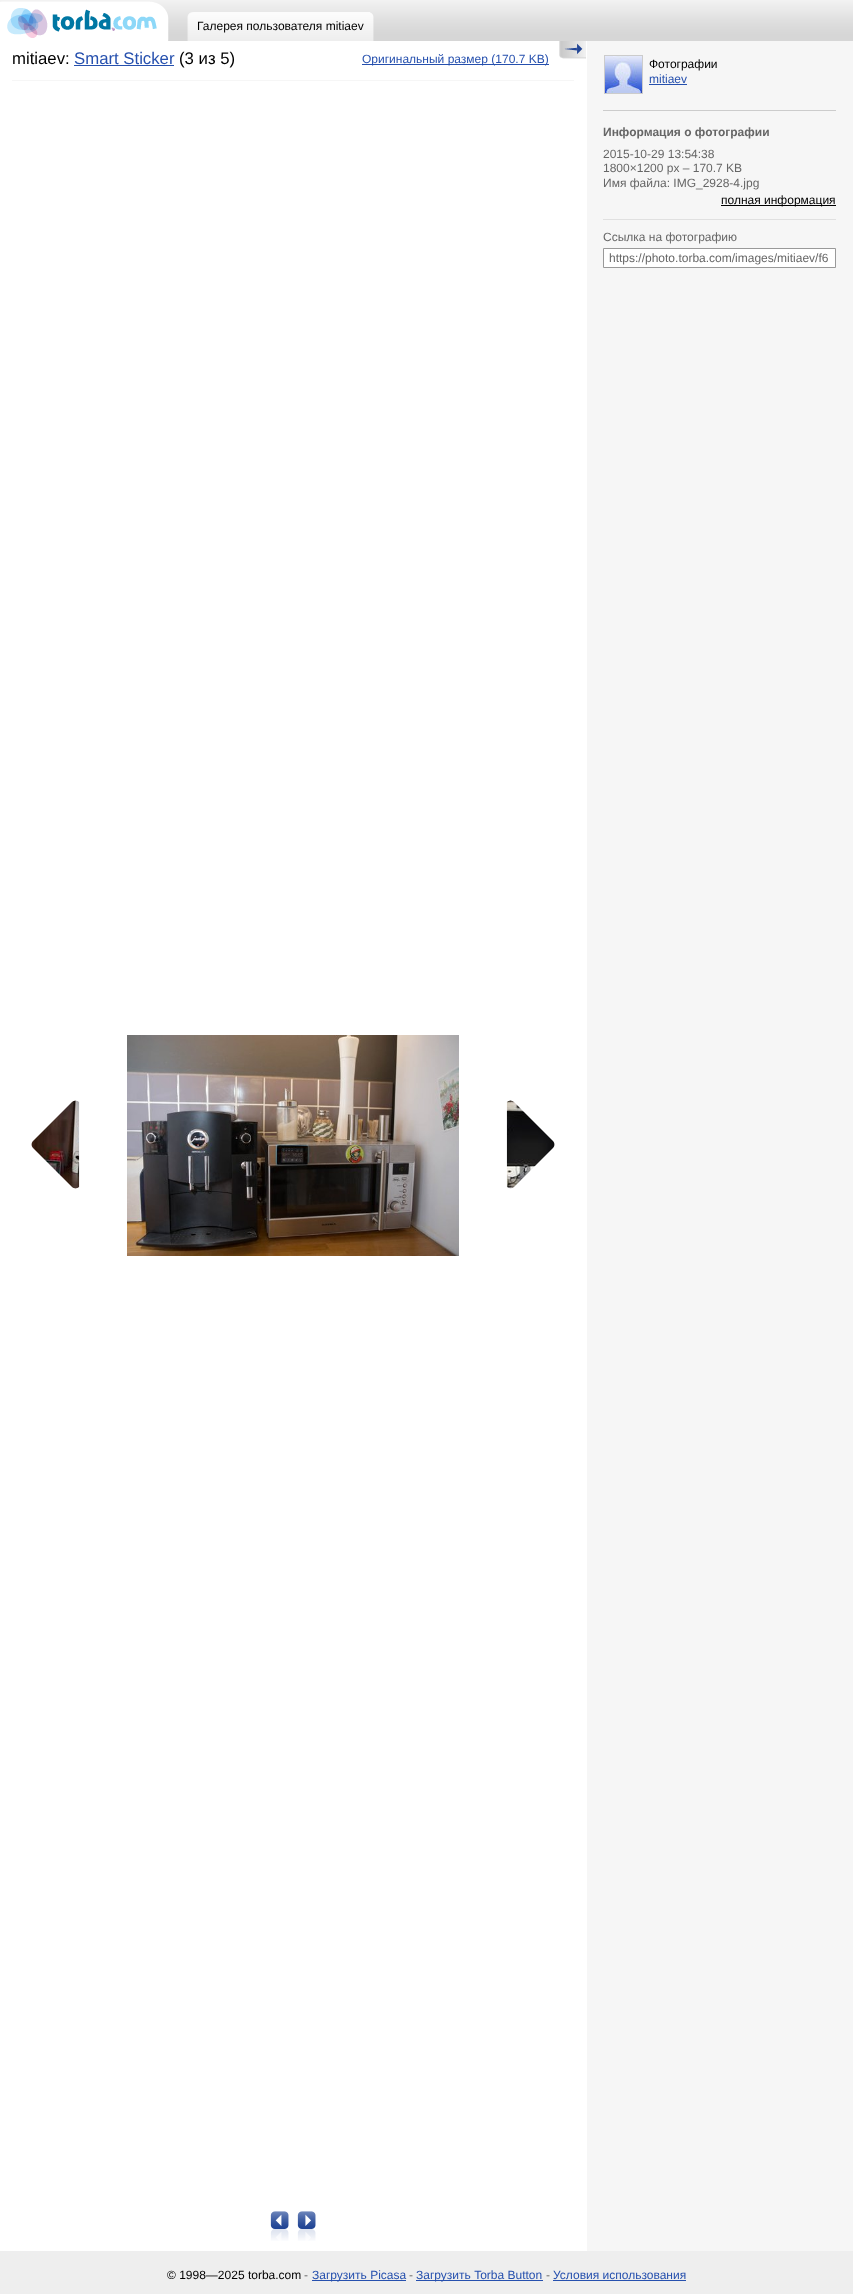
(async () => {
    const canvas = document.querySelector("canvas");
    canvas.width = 853;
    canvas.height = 2294;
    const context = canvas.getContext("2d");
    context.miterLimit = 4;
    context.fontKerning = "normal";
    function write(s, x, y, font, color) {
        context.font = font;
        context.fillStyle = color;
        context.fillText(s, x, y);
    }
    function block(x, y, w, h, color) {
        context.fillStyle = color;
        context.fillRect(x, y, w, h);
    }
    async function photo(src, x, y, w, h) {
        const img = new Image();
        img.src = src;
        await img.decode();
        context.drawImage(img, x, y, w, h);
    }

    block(0, 0, 853, 2294, "rgb(255, 255, 255)");
    block(587, 41, 266, 2210, "rgb(246, 246, 246)");
    await photo("media/1.png", 0, 0, 853, 41);
    await photo("media/2.png", 0, 1, 169, 40);
    await photo("media/3.png", 187, 12, 183, 29);
    await photo("media/4.png", 370, 12, 4, 29);
    write("Галерея пользователя mitiaev", 197, 30, "12px Liberation Sans", "rgb(0, 0, 0)");
    block(12, 80, 562, 1, "rgb(246, 246, 246)");
    write("mitiaev:", 12, 64, "16.75px Liberation Sans", "rgb(0, 0, 0)");
    write("Smart Sticker", 74, 64, "16.75px Liberation Sans", "rgb(38, 80, 174)");
    block(74, 65, 100, 1, "rgb(38, 80, 174)");
    write("(3 из 5)", 179, 64, "16.75px Liberation Sans", "rgb(0, 0, 0)");
    block(362, 64, 187, 1, "rgb(38, 80, 174)");
    write("Оригинальный размер (170.7 KB)", 362, 63, "12px Liberation Sans", "rgb(38, 80, 174)");
    await photo("media/6.png", 31, 1100, 49, 89);
    await photo("media/5.png", 12, 1095, 100, 100);
    await photo("media/7.png", 127, 1035, 332, 221);
    await photo("media/9.png", 506, 1100, 49, 89);
    await photo("media/8.png", 474, 1095, 100, 100);
    await photo("media/10.png", 270, 2211, 19, 30);
    await photo("media/11.png", 297, 2211, 19, 30);
    await photo("media/12.png", 559, 41, 27, 18);
    block(603, 110, 233, 1, "rgb(204, 204, 204)");
    context.strokeStyle = "rgb(204, 204, 204)";
    context.strokeRect(604.5, 55.5, 38, 38);
    await photo("media/13.png", 605, 56, 37, 37);
    write("Фотографии", 649, 68, "12px Liberation Sans", "rgb(0, 0, 0)");
    write("mitiaev", 649, 83, "12px Liberation Sans", "rgb(38, 80, 174)");
    block(649, 84, 38, 1, "rgb(38, 80, 174)");
    write("Информация о фотографии", 603, 136, "bold 12px Liberation Sans", "rgb(102, 102, 102)");
    write("2015-10-29 13:54:38", 603, 158, "12px Liberation Sans", "rgb(102, 102, 102)");
    write("1800×1200 px – 170.7 KB", 603, 172, "12px Liberation Sans", "rgb(102, 102, 102)");
    write("Имя файла: IMG_2928-4.jpg", 603, 187, "12px Liberation Sans", "rgb(102, 102, 102)");
    block(721, 205, 115, 1, "rgb(0, 0, 0)");
    write("полная информация", 721, 204, "12px Liberation Sans", "rgb(0, 0, 0)");
    block(603, 219, 233, 1, "rgb(224, 224, 224)");
    write("Ссылка на фотографию", 603, 241, "12px Liberation Sans", "rgb(102, 102, 102)");
    context.fillStyle = "rgb(255, 255, 255)";
    context.beginPath();
    context.rect(603.5, 248.5, 232, 19);
    context.fill();
    context.strokeStyle = "rgb(153, 153, 153)";
    context.stroke();
    write("https://photo.torba.com/images/mitiaev/f6", 609, 262, "12px Liberation Sans", "rgb(102, 102, 102)");
    block(0, 2251, 853, 43, "rgb(238, 238, 238)");
    write("© 1998—2025 torba.com", 167, 2279, "12px Liberation Sans", "rgb(0, 0, 0)");
    write("-", 304, 2279, "12px Liberation Sans", "rgb(102, 102, 102)");
    block(312, 2280, 94, 1, "rgb(38, 80, 174)");
    write("Загрузить Picasa", 312, 2279, "12px Liberation Sans", "rgb(38, 80, 174)");
    write("-", 409, 2279, "12px Liberation Sans", "rgb(102, 102, 102)");
    block(416, 2280, 127, 1, "rgb(38, 80, 174)");
    write("Загрузить Torba Button", 416, 2279, "12px Liberation Sans", "rgb(38, 80, 174)");
    write("-", 546, 2279, "12px Liberation Sans", "rgb(102, 102, 102)");
    write("Условия использования", 553, 2279, "12px Liberation Sans", "rgb(38, 80, 174)");
    block(553, 2280, 133, 1, "rgb(38, 80, 174)");
})();
